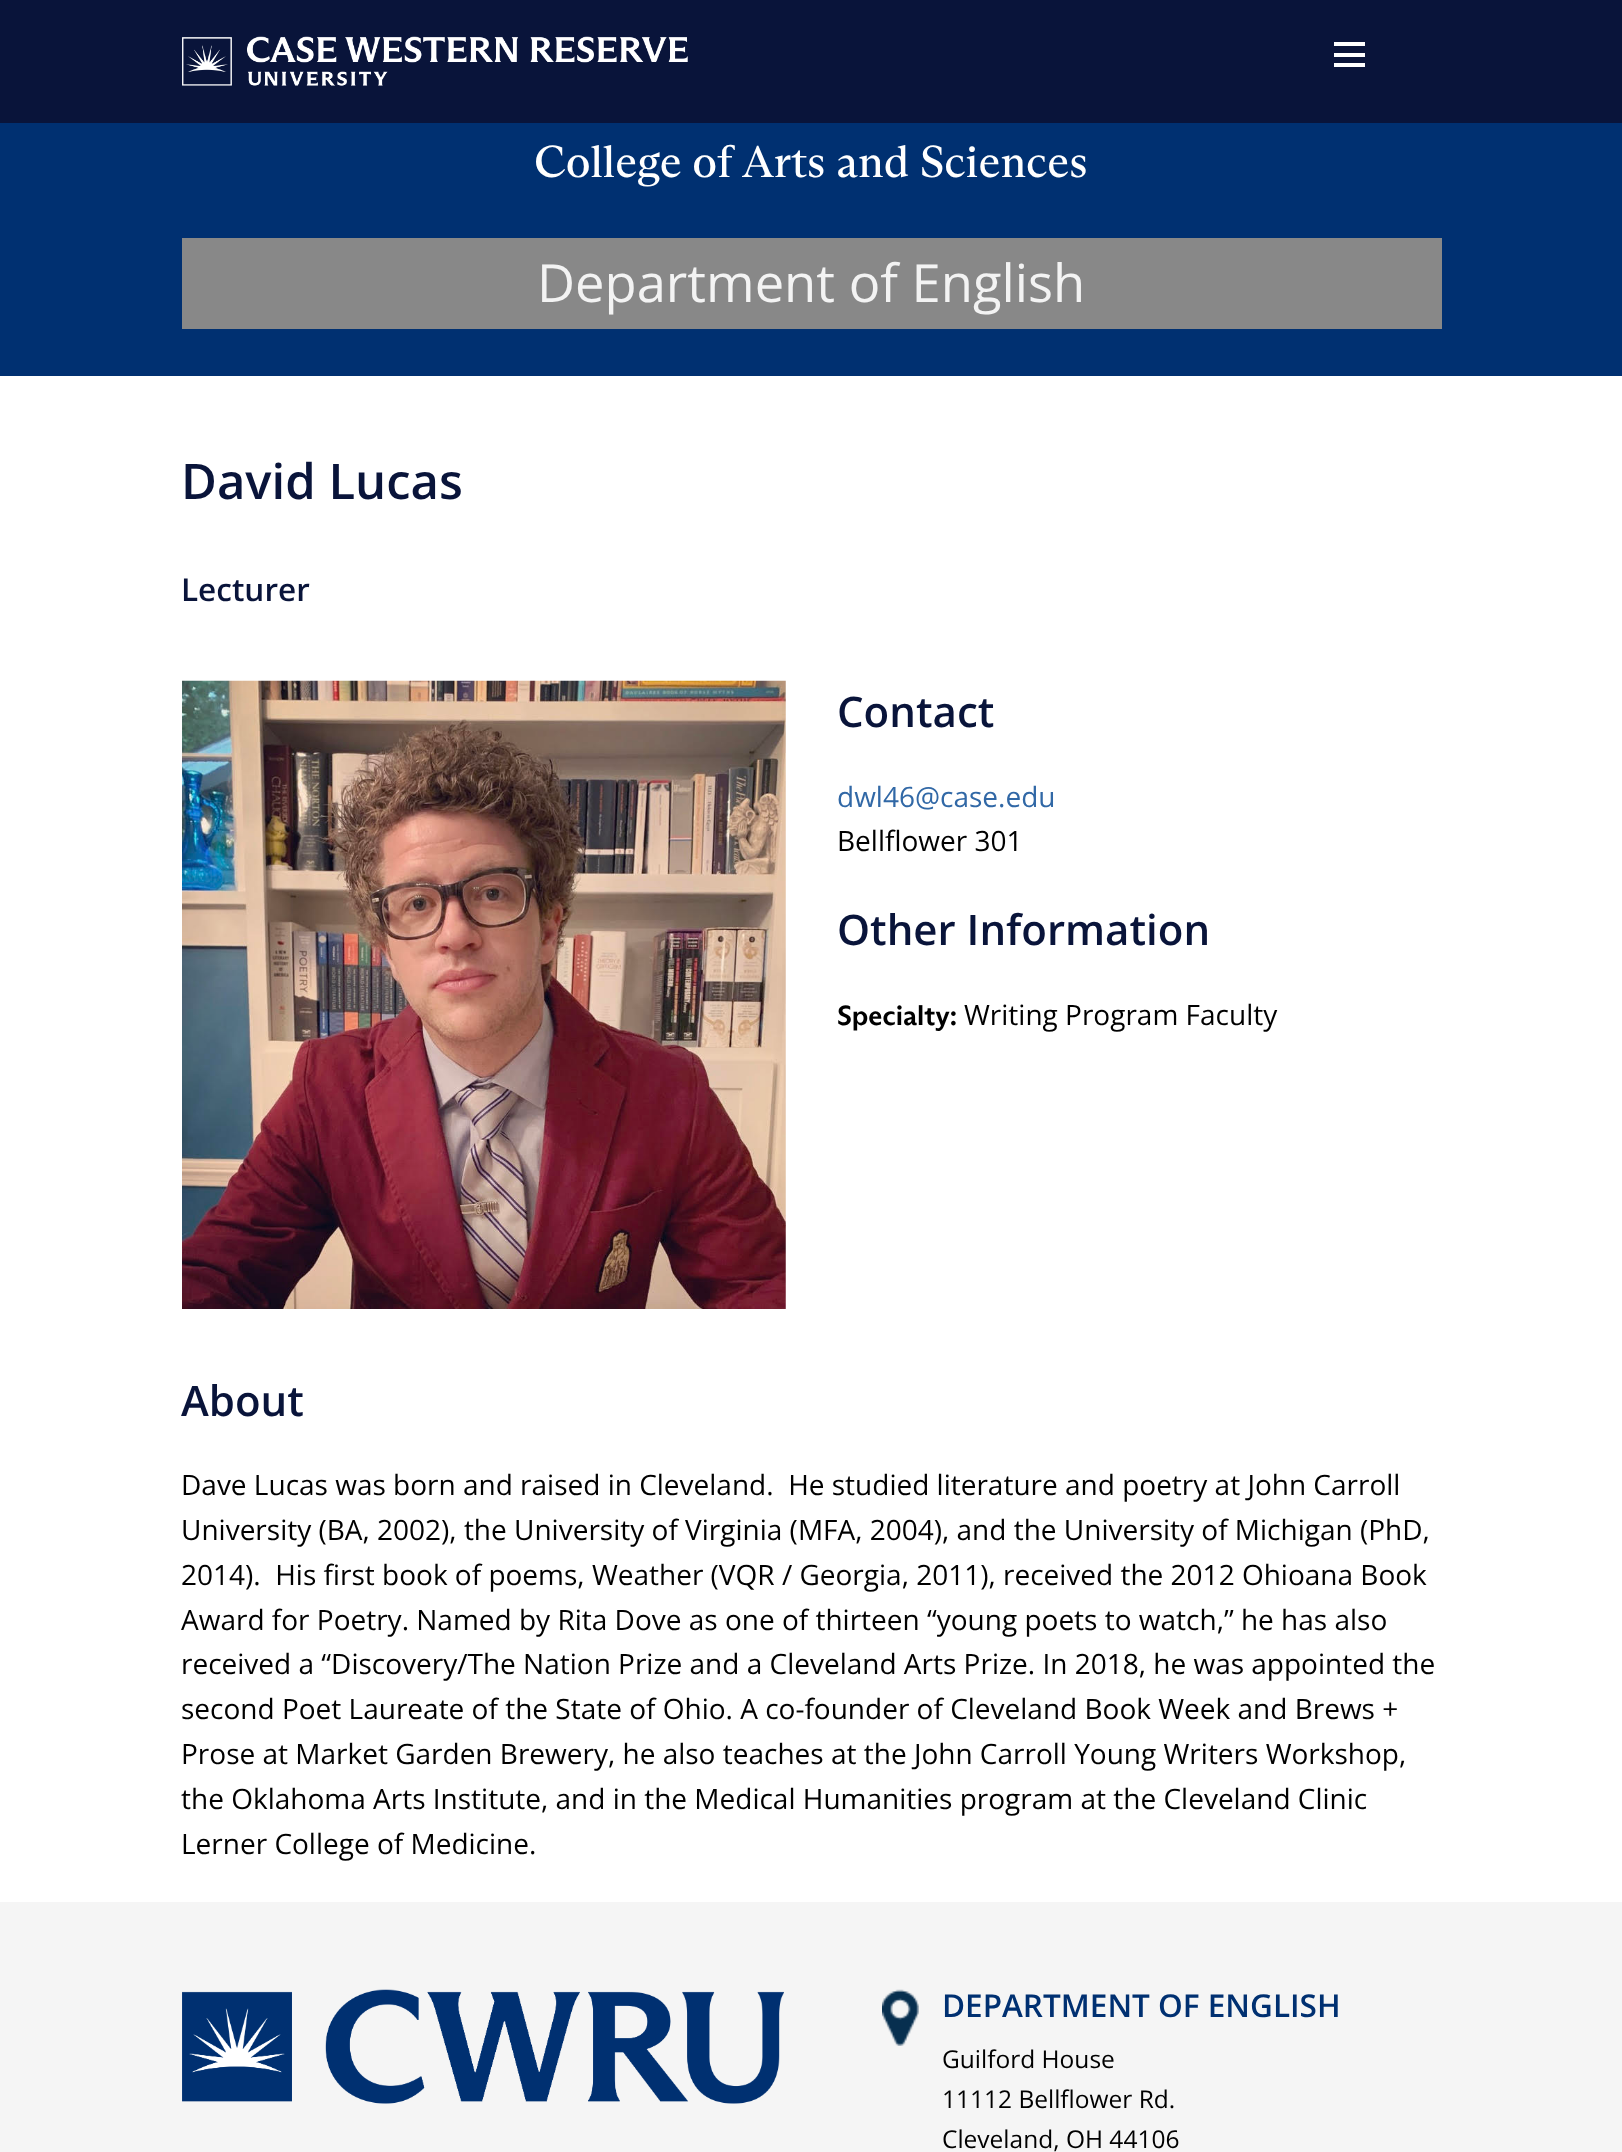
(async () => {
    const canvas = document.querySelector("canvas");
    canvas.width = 1622;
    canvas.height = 2152;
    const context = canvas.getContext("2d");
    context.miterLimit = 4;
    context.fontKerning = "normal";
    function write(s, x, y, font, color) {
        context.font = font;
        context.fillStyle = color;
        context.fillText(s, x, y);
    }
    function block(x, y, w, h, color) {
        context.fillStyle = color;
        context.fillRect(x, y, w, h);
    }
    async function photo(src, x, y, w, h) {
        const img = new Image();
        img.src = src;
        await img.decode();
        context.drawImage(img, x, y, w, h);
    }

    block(0, 0, 1622, 2152, "rgb(255, 255, 255)");
    block(0, 0, 1622, 123, "rgb(9, 20, 58)");
    await photo("media/1.png", 182, 36, 506, 50);
    block(1334, 53, 31, 4, "rgb(255, 255, 255)");
    block(1334, 42, 31, 4, "rgb(255, 255, 255)");
    block(1334, 63, 31, 4, "rgb(255, 255, 255)");
    block(0, 123, 1622, 253, "rgb(0, 48, 113)");
    write("College of Arts and Sciences", 534, 177, "44.75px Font", "rgb(255, 255, 255)");
    block(182, 238, 1260, 91, "rgb(136, 136, 136)");
    write("Department of English", 537, 302, "52.5px Open Sans", "rgb(243, 243, 243)");
    write("David Lucas", 181, 499, "600 49px Open Sans", "rgb(9, 20, 58)");
    write("Lecturer", 181, 601, "600 31.5px Open Sans", "rgb(9, 20, 58)");
    await photo("media/2.png", 182, 680, 604, 629);
    write("Contact", 837, 727, "600 42px Open Sans", "rgb(9, 20, 58)");
    write("dwl46@case.edu", 837, 807, "28px Open Sans", "rgb(49, 104, 166)");
    write("Bellflower 301", 837, 851, "28px Open Sans", "rgb(0, 0, 0)");
    write("Other Information", 837, 945, "600 42px Open Sans", "rgb(9, 20, 58)");
    write("Specialty:", 837, 1025, "bold 28px Font", "rgb(0, 0, 0)");
    write("Writing Program Faculty", 964, 1025, "28px Open Sans", "rgb(0, 0, 0)");
    write("About", 181, 1416, "600 42px Open Sans", "rgb(9, 20, 58)");
    write("Dave Lucas was born and raised in Cleveland.  He studied literature and poetry at John Carroll", 181, 1495, "28px Open Sans", "rgb(0, 0, 0)");
    write("University (BA, 2002), the University of Virginia (MFA, 2004), and the University of Michigan (PhD,", 181, 1540, "28px Open Sans", "rgb(0, 0, 0)");
    write("2014).  His first book of poems, Weather (VQR / Georgia, 2011), received the 2012 Ohioana Book", 181, 1585, "28px Open Sans", "rgb(0, 0, 0)");
    write("Award for Poetry. Named by Rita Dove as one of thirteen “young poets to watch,” he has also", 181, 1630, "28px Open Sans", "rgb(0, 0, 0)");
    write("received a “Discovery/The Nation Prize and a Cleveland Arts Prize. In 2018, he was appointed the", 181, 1674, "28px Open Sans", "rgb(0, 0, 0)");
    write("second Poet Laureate of the State of Ohio. A co-founder of Cleveland Book Week and Brews +", 181, 1719, "28px Open Sans", "rgb(0, 0, 0)");
    write("Prose at Market Garden Brewery, he also teaches at the John Carroll Young Writers Workshop,", 181, 1764, "28px Open Sans", "rgb(0, 0, 0)");
    write("the Oklahoma Arts Institute, and in the Medical Humanities program at the Cleveland Clinic", 181, 1809, "28px Open Sans", "rgb(0, 0, 0)");
    write("Lerner College of Medicine.", 181, 1854, "28px Open Sans", "rgb(0, 0, 0)");
    block(0, 1902, 1622, 250, "rgb(245, 245, 245)");
    await photo("media/3.png", 182, 1989, 602, 115);
    await photo("media/4.png", 882, 1989, 37, 57);
    write("DEPARTMENT OF ENGLISH", 942, 2017, "600 31.5px Open Sans", "rgb(0, 48, 113)");
    write("Guilford House", 942, 2068, "24.5px Open Sans", "rgb(0, 0, 0)");
    write("11112 Bellflower Rd.", 942, 2108, "24.5px Open Sans", "rgb(0, 0, 0)");
    write("Cleveland, OH 44106", 942, 2148, "24.5px Open Sans", "rgb(0, 0, 0)");
})();
